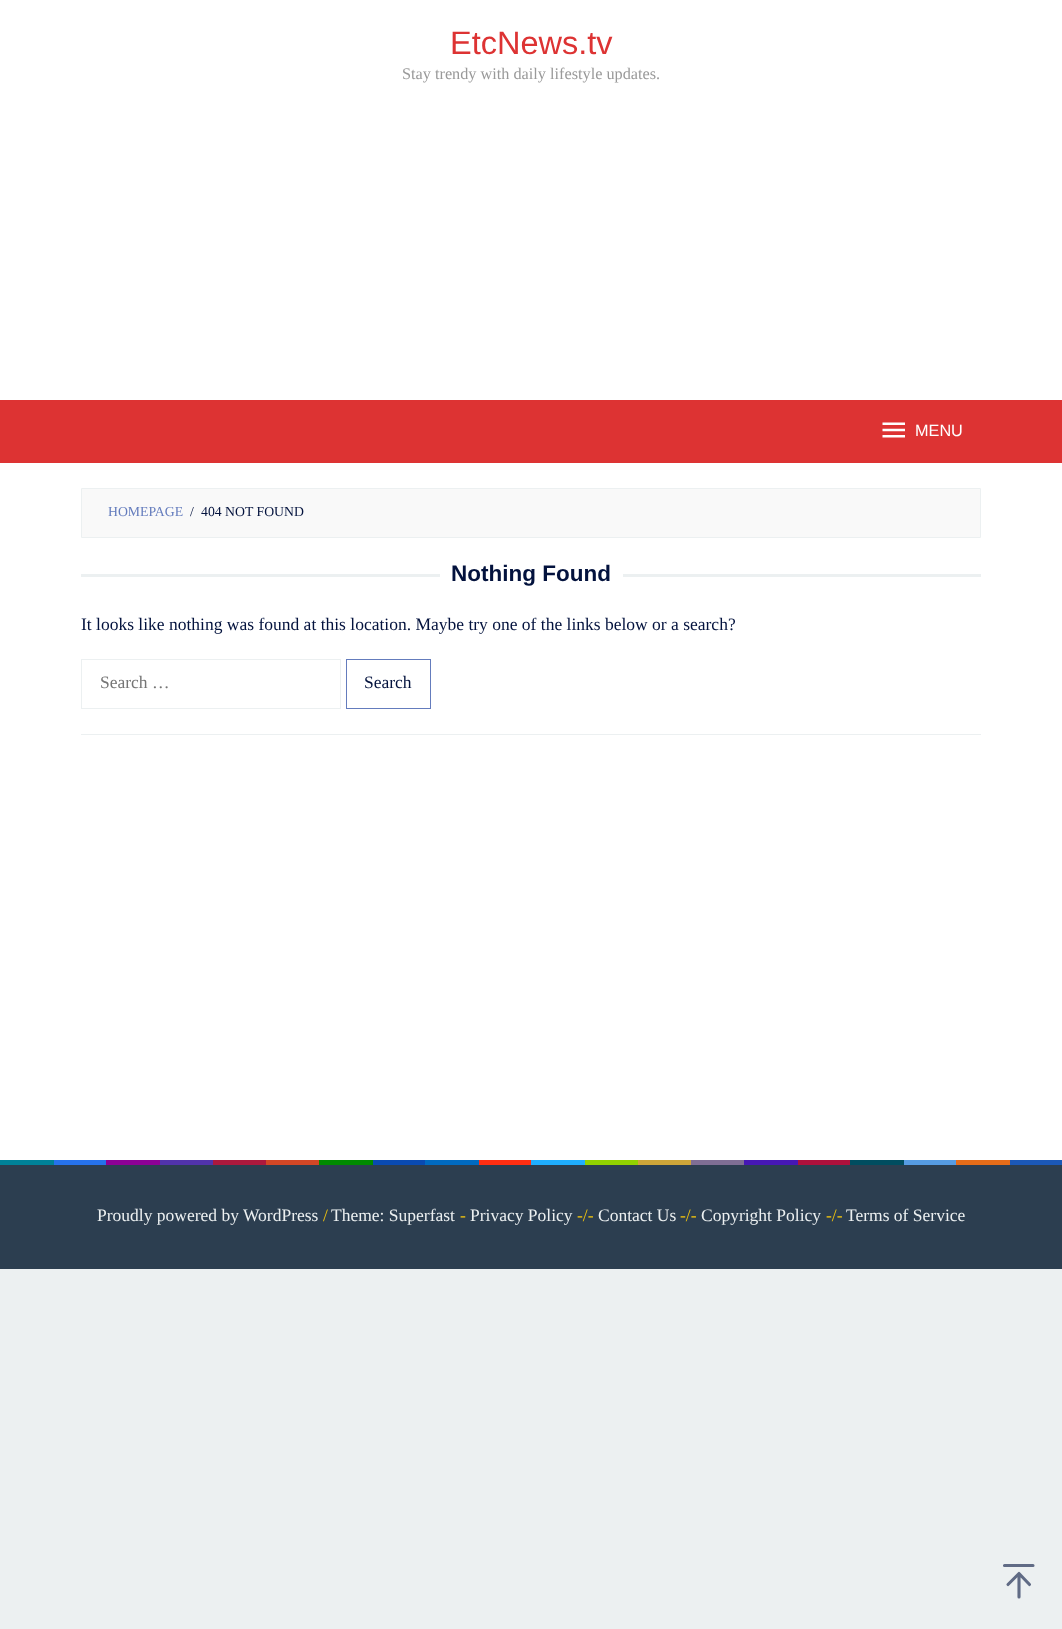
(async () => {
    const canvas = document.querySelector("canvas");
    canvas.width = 1062;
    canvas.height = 1629;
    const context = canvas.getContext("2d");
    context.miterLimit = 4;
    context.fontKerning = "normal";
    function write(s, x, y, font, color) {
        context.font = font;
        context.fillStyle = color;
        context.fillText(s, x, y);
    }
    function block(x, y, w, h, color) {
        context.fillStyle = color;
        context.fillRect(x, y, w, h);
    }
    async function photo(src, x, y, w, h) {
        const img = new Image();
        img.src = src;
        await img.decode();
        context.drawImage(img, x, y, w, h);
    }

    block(0, 0, 1062, 1629, "rgb(236, 240, 241)");
    block(0, 0, 1062, 400, "rgb(255, 255, 255)");
    write("EtcNews.tv", 450, 54, "32.5px Liberation Sans", "rgb(221, 51, 51)");
    write("Stay trendy with daily lifestyle updates.", 402, 79, "16.25px Liberation Serif", "rgb(153, 153, 153)");
    block(0, 400, 1062, 63, "rgb(221, 51, 51)");
    await photo("media/1.png", 882, 422, 23, 16);
    write("MENU", 915, 436, "16.25px Liberation Sans", "rgb(255, 255, 255)");
    block(0, 463, 1062, 697, "rgb(255, 255, 255)");
    context.fillStyle = "rgb(249, 249, 249)";
    context.beginPath();
    context.rect(81.5, 488.5, 899, 49);
    context.fill();
    context.strokeStyle = "rgb(236, 240, 241)";
    context.stroke();
    write("HOMEPAGE", 108, 516, "13.75px Liberation Serif", "rgb(100, 124, 189)");
    write("/", 190, 516, "13.75px Liberation Serif", "rgb(3, 18, 61)");
    write("404 NOT FOUND", 201, 516, "13.75px Liberation Serif", "rgb(3, 18, 61)");
    block(81, 734, 900, 1, "rgb(236, 240, 241)");
    block(81, 574, 359, 3, "rgb(236, 240, 241)");
    write("Nothing Found", 451, 581, "bold 22.5px Liberation Sans", "rgb(3, 18, 61)");
    block(623, 574, 358, 3, "rgb(236, 240, 241)");
    write("It looks like nothing was found at this location. Maybe try one of the links below or a search?", 81, 630, "17.5px Liberation Serif", "rgb(3, 18, 61)");
    context.strokeRect(81.5, 659.5, 259, 49);
    write("Search …", 100, 688, "17.5px Liberation Serif", "rgb(117, 117, 117)");
    context.strokeStyle = "rgb(100, 124, 189)";
    context.strokeRect(346.5, 659.5, 84, 49);
    write("Search", 364, 688, "17.5px Liberation Serif", "rgb(3, 18, 61)");
    block(0, 1160, 54, 5, "rgb(0, 130, 153)");
    block(54, 1160, 52, 5, "rgb(38, 114, 236)");
    block(106, 1160, 54, 5, "rgb(140, 0, 149)");
    block(160, 1160, 53, 5, "rgb(81, 51, 171)");
    block(213, 1160, 53, 5, "rgb(172, 25, 61)");
    block(266, 1160, 53, 5, "rgb(210, 71, 38)");
    block(319, 1160, 54, 5, "rgb(0, 138, 0)");
    block(373, 1160, 52, 5, "rgb(9, 74, 178)");
    block(425, 1160, 54, 5, "rgb(0, 106, 193)");
    block(479, 1160, 52, 5, "rgb(255, 46, 18)");
    block(531, 1160, 54, 5, "rgb(31, 174, 255)");
    block(585, 1160, 53, 5, "rgb(145, 209, 0)");
    block(638, 1160, 53, 5, "rgb(206, 165, 57)");
    block(691, 1160, 53, 5, "rgb(127, 110, 148)");
    block(744, 1160, 54, 5, "rgb(70, 23, 180)");
    block(798, 1160, 52, 5, "rgb(173, 16, 60)");
    block(850, 1160, 54, 5, "rgb(0, 77, 96)");
    block(904, 1160, 52, 5, "rgb(86, 156, 227)");
    block(956, 1160, 54, 5, "rgb(229, 108, 25)");
    block(1010, 1160, 52, 5, "rgb(27, 88, 184)");
    block(0, 1165, 1062, 104, "rgb(44, 62, 80)");
    write("Proudly powered by WordPress", 97, 1221, "17.5px Liberation Serif", "rgb(236, 240, 241)");
    write("/", 323, 1221, "17.5px Liberation Serif", "rgb(241, 196, 15)");
    write("Theme: Superfast", 331, 1221, "17.5px Liberation Serif", "rgb(236, 240, 241)");
    write("-", 460, 1221, "17.5px Liberation Serif", "rgb(241, 196, 15)");
    write("Privacy Policy", 470, 1221, "17.5px Liberation Serif", "rgb(236, 240, 241)");
    write("-/-", 577, 1221, "17.5px Liberation Serif", "rgb(241, 196, 15)");
    write("Contact Us", 598, 1221, "17.5px Liberation Serif", "rgb(236, 240, 241)");
    write("-/-", 680, 1221, "17.5px Liberation Serif", "rgb(241, 196, 15)");
    write("Copyright Policy", 701, 1221, "17.5px Liberation Serif", "rgb(236, 240, 241)");
    write("-/-", 826, 1221, "17.5px Liberation Serif", "rgb(241, 196, 15)");
    write("Terms of Service", 846, 1221, "17.5px Liberation Serif", "rgb(236, 240, 241)");
    context.beginPath();
    context.moveTo(1019, 1597);
    context.lineTo(1019, 1573.5);
    context.moveTo(1008, 1584.5);
    context.lineTo(1019, 1573.5);
    context.lineTo(1029.5, 1584.5);
    context.moveTo(1004.5, 1565.5);
    context.lineTo(1033, 1565.5);
    context.strokeStyle = "rgb(96, 107, 133)";
    context.lineWidth = 3.1;
    context.lineCap = "round";
    context.lineJoin = "round";
    context.stroke();
})();
